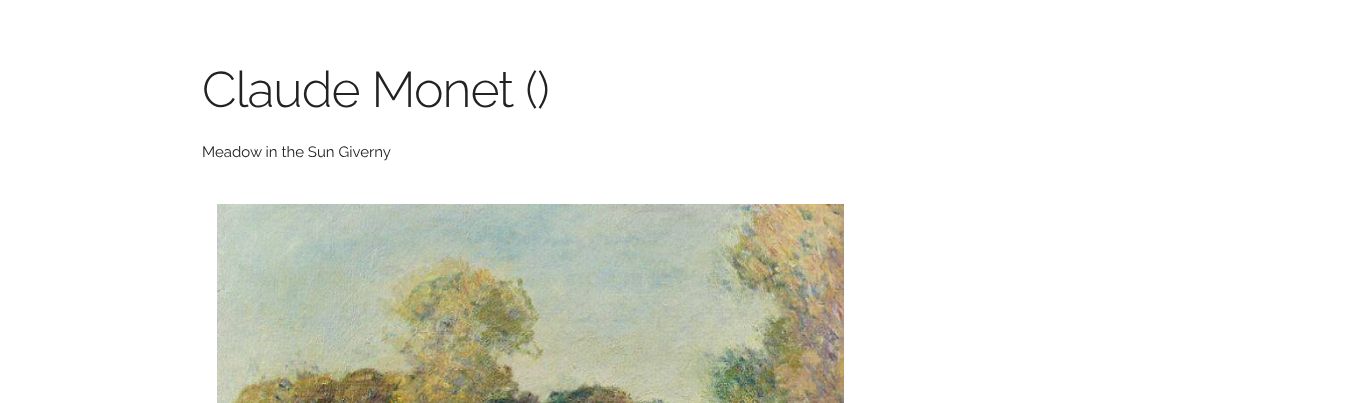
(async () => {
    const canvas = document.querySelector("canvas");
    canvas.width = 1364;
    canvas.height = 403;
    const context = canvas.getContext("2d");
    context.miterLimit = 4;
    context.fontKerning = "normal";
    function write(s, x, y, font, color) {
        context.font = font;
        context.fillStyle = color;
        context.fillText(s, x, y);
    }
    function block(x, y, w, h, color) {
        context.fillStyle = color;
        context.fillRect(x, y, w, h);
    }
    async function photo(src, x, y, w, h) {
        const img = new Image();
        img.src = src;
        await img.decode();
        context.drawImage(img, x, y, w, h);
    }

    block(0, 0, 1364, 403, "rgb(255, 255, 255)");
    context.letterSpacing = "-1px";
    write("Claude Monet ()", 202, 107, "300 50px Raleway", "rgb(34, 34, 34)");
    context.letterSpacing = "0px";
    write("Meadow in the Sun Giverny", 202, 157, "15px Raleway", "rgb(34, 34, 34)");
    await photo("media/1.png", 217, 204, 627, 199);
})();
